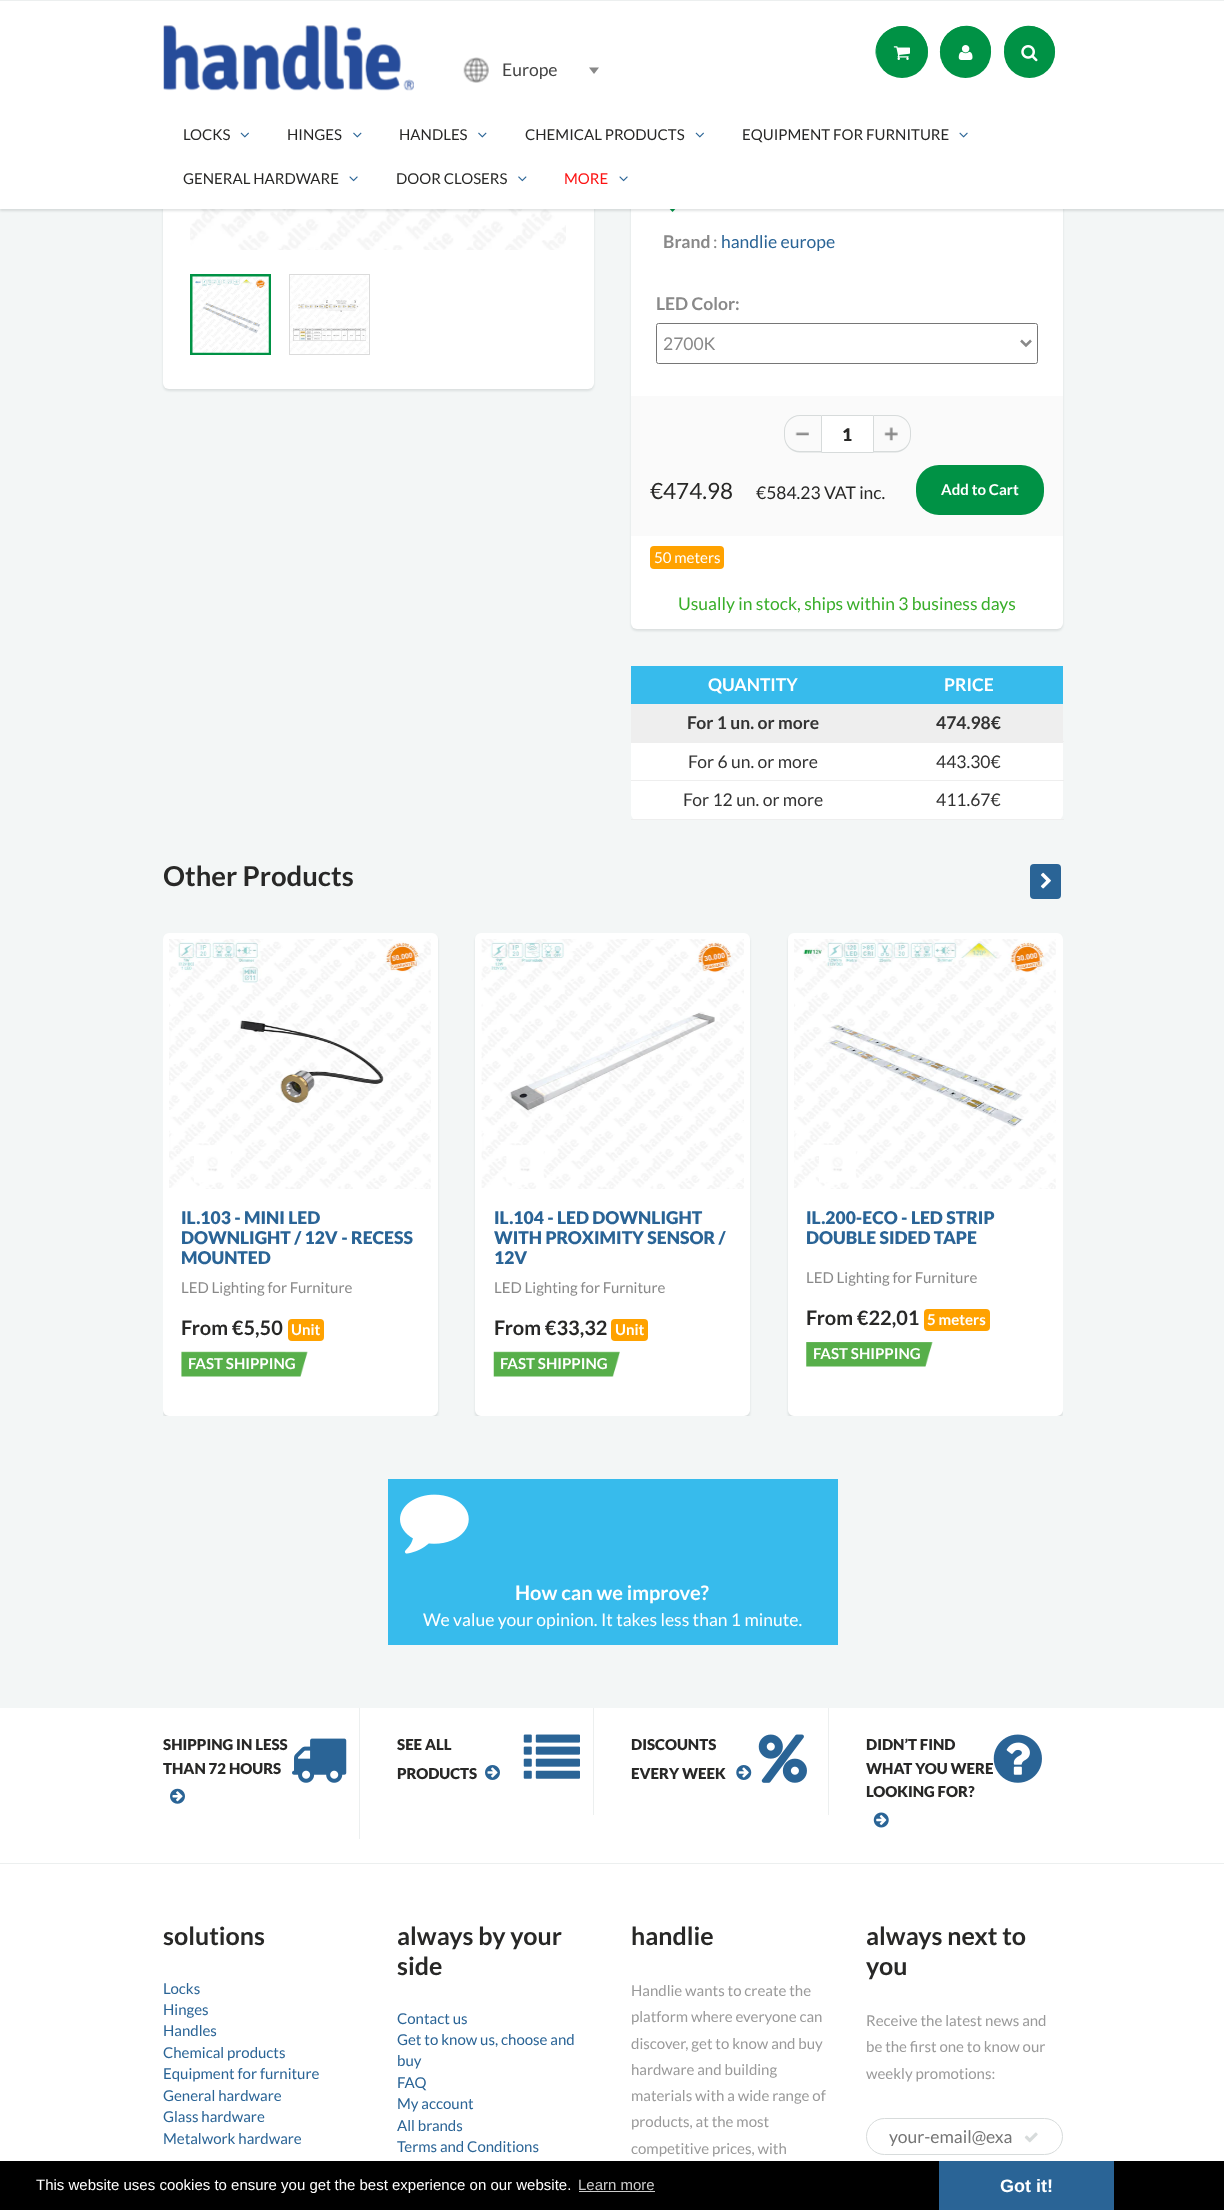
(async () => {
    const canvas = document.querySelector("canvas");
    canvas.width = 1224;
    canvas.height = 2210;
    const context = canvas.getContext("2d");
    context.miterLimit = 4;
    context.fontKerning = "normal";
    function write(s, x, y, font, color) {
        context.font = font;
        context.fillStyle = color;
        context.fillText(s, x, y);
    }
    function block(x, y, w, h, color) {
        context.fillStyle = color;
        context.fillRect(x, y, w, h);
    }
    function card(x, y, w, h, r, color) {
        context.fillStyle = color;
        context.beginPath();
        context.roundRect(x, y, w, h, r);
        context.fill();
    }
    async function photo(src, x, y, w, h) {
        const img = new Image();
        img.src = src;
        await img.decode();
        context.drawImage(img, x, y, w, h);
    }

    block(0, 0, 1224, 2210, "rgb(255, 255, 255)");
    block(0, 209, 1224, 1499, "rgb(243, 246, 246)");
    context.fillStyle = "rgba(11, 25, 28, 0.1)";
    context.filter = "blur(1px)";
    context.beginPath();
    context.roundRect(163, -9, 431, 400, 6);
    context.fill();
    context.filter = "none";
    card(163, -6, 431, 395, 6, "rgb(255, 255, 255)");
    await photo("media/11.png", 190, 209, 376, 41);
    context.fillStyle = "rgba(11, 25, 28, 0.1)";
    context.filter = "blur(1px)";
    context.beginPath();
    context.roundRect(631, -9, 432, 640, 6);
    context.fill();
    context.filter = "none";
    card(631, -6, 432, 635, 6, "rgb(255, 255, 255)");
    await photo("media/14.png", 669, 209, 7, 3);
    context.fillStyle = "rgba(11, 25, 28, 0.12)";
    context.filter = "blur(1px)";
    context.beginPath();
    context.rect(0, 3, 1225, 208);
    context.fill();
    context.filter = "none";
    block(0, 1, 1224, 208, "rgb(255, 255, 255)");
    block(0, 0, 1224, 1, "rgb(236, 239, 239)");
    await photo("media/1.png", 163, 25, 251, 66);
    await photo("media/2.png", 463, 57, 26, 26);
    write("Europe", 502, 76, "17.5px Lato", "rgb(68, 68, 68)");
    context.fillStyle = "rgb(136, 136, 136)";
    context.beginPath();
    context.moveTo(589, 67.5);
    context.lineTo(599, 67.5);
    context.lineTo(594, 74);
    context.closePath();
    context.fill();
    context.fillStyle = "rgb(0, 146, 69)";
    context.beginPath();
    context.arc(902, 52, 26, 0, Math.PI * 2);
    context.fill();
    context.beginPath();
    context.moveTo(902, 28);
    context.bezierCurveTo(922, 28, 930, 45, 927, 60);
    context.bezierCurveTo(929, 54, 928, 48, 926, 42);
    context.bezierCurveTo(913, 11, 867, 29, 877, 60);
    context.bezierCurveTo(874, 45, 882, 28, 902, 28);
    context.closePath();
    context.fill();
    await photo("media/3.png", 893, 46, 17, 14);
    card(940, 26, 51, 52, 25.5, "rgb(0, 146, 69)");
    context.beginPath();
    context.moveTo(966, 28);
    context.bezierCurveTo(984, 28, 993, 44, 990, 58);
    context.bezierCurveTo(992, 51, 991, 43, 987, 37);
    context.bezierCurveTo(969, 11, 931, 34, 942, 62);
    context.bezierCurveTo(937, 47, 945, 28, 966, 28);
    context.closePath();
    context.fill();
    await photo("media/4.png", 958, 45, 15, 15);
    card(1004, 26, 51, 52, 25.5, "rgb(0, 146, 69)");
    context.beginPath();
    context.moveTo(1029, 28);
    context.bezierCurveTo(1050, 28, 1058, 47, 1053, 62);
    context.bezierCurveTo(1064, 34, 1026, 11, 1008, 37);
    context.bezierCurveTo(1004, 43, 1003, 51, 1005, 58);
    context.bezierCurveTo(1002, 44, 1011, 28, 1029, 28);
    context.closePath();
    context.fill();
    await photo("media/5.png", 1021, 45, 17, 17);
    write("LOCKS", 183, 140, "15px Lato", "rgb(40, 40, 39)");
    await photo("media/6.png", 240, 132, 9, 6);
    write("HINGES", 287, 140, "15px Lato", "rgb(40, 40, 39)");
    await photo("media/7.png", 353, 132, 9, 6);
    write("HANDLES", 399, 140, "15px Lato", "rgb(40, 40, 39)");
    await photo("media/7.png", 478, 132, 9, 6);
    write("CHEMICAL PRODUCTS", 525, 140, "15px Lato", "rgb(40, 40, 39)");
    await photo("media/6.png", 695, 132, 9, 6);
    write("EQUIPMENT FOR FURNITURE", 742, 140, "15px Lato", "rgb(40, 40, 39)");
    await photo("media/8.png", 959, 132, 9, 6);
    write("GENERAL HARDWARE", 183, 184, "15px Lato", "rgb(40, 40, 39)");
    await photo("media/9.png", 349, 176, 9, 6);
    write("DOOR CLOSERS", 396, 184, "15px Lato", "rgb(40, 40, 39)");
    await photo("media/10.png", 518, 176, 9, 6);
    write("MORE", 564, 184, "15px Lato", "rgb(252, 19, 19)");
    await photo("media/9.png", 619, 176, 9, 6);
    context.strokeStyle = "rgb(0, 146, 69)";
    context.lineWidth = 3;
    context.strokeRect(191.5, 275.5, 78, 78);
    await photo("media/12.png", 192, 276, 77, 77);
    context.strokeStyle = "rgb(219, 219, 219)";
    context.lineWidth = 1;
    context.strokeRect(289.5, 274.5, 80, 80);
    await photo("media/13.png", 290, 275, 79, 79);
    write("Brand", 663, 248, "bold 17.5px Lato", "rgb(137, 137, 137)");
    write(":", 713, 248, "17.5px Lato", "rgb(137, 137, 137)");
    write("handlie europe", 721, 248, "17.5px Lato", "rgb(42, 100, 150)");
    write("LED Color:", 656, 310, "bold 17.5px Lato", "rgb(137, 137, 137)");
    context.beginPath();
    context.roundRect(656.5, 323.5, 381, 40, 2);
    context.strokeStyle = "rgb(118, 118, 118)";
    context.stroke();
    context.beginPath();
    context.moveTo(1021, 340.5);
    context.lineTo(1026, 345.5);
    context.lineTo(1031, 340.5);
    context.strokeStyle = "rgb(137, 137, 137)";
    context.lineWidth = 2.5;
    context.stroke();
    write("2700K", 663, 350, "17.5px Lato", "rgb(137, 137, 137)");
    block(631, 396, 432, 140, "rgb(250, 250, 250)");
    await photo("media/15.png", 795, 432, 14, 4);
    context.fillStyle = "rgb(215, 219, 219)";
    context.beginPath();
    context.moveTo(800, 415);
    context.lineTo(821, 415);
    context.lineTo(821, 452.5);
    context.lineTo(800, 452.5);
    context.bezierCurveTo(791, 452.5, 784, 445, 784, 436);
    context.lineTo(784, 431);
    context.bezierCurveTo(784, 422.5, 791, 415, 800, 415);
    context.closePath();
    context.moveTo(800, 416);
    context.lineTo(821, 416);
    context.lineTo(821, 451);
    context.lineTo(800, 451);
    context.bezierCurveTo(791.5, 451, 785, 444.5, 785, 436);
    context.lineTo(785, 431);
    context.bezierCurveTo(785, 423, 791.5, 416, 800, 416);
    context.closePath();
    context.fill("evenodd");
    context.fillStyle = "rgb(255, 255, 255)";
    context.beginPath();
    context.rect(821.5, 415.5, 52, 37);
    context.fill();
    context.strokeStyle = "rgb(215, 219, 219)";
    context.lineWidth = 1;
    context.stroke();
    write("1", 842, 441, "900 17.5px Lato", "rgb(40, 40, 39)");
    await photo("media/16.png", 884, 427, 14, 14);
    context.fillStyle = "rgb(215, 219, 219)";
    context.beginPath();
    context.moveTo(874, 415);
    context.lineTo(895, 415);
    context.bezierCurveTo(904, 415, 911, 422.5, 911, 431);
    context.lineTo(911, 436);
    context.bezierCurveTo(911, 445, 904, 452.5, 895, 452.5);
    context.lineTo(874, 452.5);
    context.closePath();
    context.moveTo(874, 416);
    context.lineTo(895, 416);
    context.bezierCurveTo(903.5, 416, 910, 423, 910, 431);
    context.lineTo(910, 436);
    context.bezierCurveTo(910, 444.5, 903.5, 451, 895, 451);
    context.lineTo(874, 451);
    context.closePath();
    context.fill("evenodd");
    write("€474.98", 650, 499, "22.5px Lato", "rgb(40, 40, 39)");
    write("€584.23 VAT inc.", 756, 499, "17.5px Lato", "rgb(40, 40, 39)");
    card(916, 465, 128, 50, 23, "rgb(0, 146, 69)");
    write("Add to Cart", 941, 495, "bold 15px Lato", "rgb(255, 255, 255)");
    card(650, 546, 74, 23, 4, "rgb(255, 162, 0)");
    write("50 meters", 654, 563, "15px Lato", "rgb(255, 255, 255)");
    write("Usually in stock, ships within 3 business days", 678, 610, "17.5px Lato", "rgb(57, 174, 42)");
    card(631, 666, 432, 154, 6, "rgb(255, 255, 255)");
    block(631, 666, 432, 38, "rgb(55, 187, 236)");
    write("QUANTITY", 708, 691, "bold 17.5px Lato", "rgb(255, 255, 255)");
    write("PRICE", 944, 691, "bold 17.5px Lato", "rgb(255, 255, 255)");
    block(631, 704, 432, 39, "rgb(238, 238, 238)");
    block(1063, 741, 1, 1, "rgb(238, 238, 238)");
    write("For 1 un. or more", 687, 729, "bold 17.5px Lato", "rgb(51, 51, 51)");
    write("474.98€", 936, 729, "bold 17.5px Lato", "rgb(51, 51, 51)");
    block(631, 780, 433, 1, "rgb(238, 238, 238)");
    write("For 6 un. or more", 688, 768, "17.5px Lato", "rgb(51, 51, 51)");
    write("443.30€", 936, 768, "17.5px Lato", "rgb(51, 51, 51)");
    block(631, 819, 433, 1, "rgb(238, 238, 238)");
    write("For 12 un. or more", 683, 806, "17.5px Lato", "rgb(51, 51, 51)");
    write("411.67€", 936, 806, "17.5px Lato", "rgb(51, 51, 51)");
    write("Other Products", 163, 886, "bold 27.5px Lato", "rgb(40, 40, 39)");
    card(1030, 864, 31, 35, 4, "rgb(42, 100, 150)");
    await photo("media/17.png", 1040, 872, 11, 17);
    context.save();
    context.beginPath();
    context.rect(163, 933, 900, 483);
    context.clip();
    context.fillStyle = "rgba(11, 25, 28, 0.1)";
    context.filter = "blur(1px)";
    context.beginPath();
    context.roundRect(163, 935, 275, 484, 6);
    context.fill();
    context.filter = "none";
    context.restore();
    context.fillStyle = "rgb(255, 255, 255)";
    context.beginPath();
    context.roundRect(166, 936, 269, 477, 3);
    context.fill();
    context.strokeStyle = "rgb(255, 255, 255)";
    context.lineWidth = 6;
    context.stroke();
    await photo("media/18.png", 169, 939, 262, 250);
    await photo("media/19.png", 194, 1145, 37, 38);
    write("IL.103 - MINI LED", 181, 1224, "900 17.5px Lato", "rgb(42, 100, 150)");
    write("DOWNLIGHT / 12V - RECESS", 181, 1244, "900 17.5px Lato", "rgb(42, 100, 150)");
    write("MOUNTED", 181, 1264, "900 17.5px Lato", "rgb(42, 100, 150)");
    write("LED Lighting for Furniture", 181, 1293, "15px Lato", "rgb(137, 137, 137)");
    write("From €5,50", 181, 1335, "bold 20px Lato", "rgb(40, 40, 39)");
    card(288, 1319, 36, 22, 4, "rgb(255, 162, 0)");
    write("Unit", 291, 1335, "bold 15px Lato", "rgb(255, 255, 255)");
    await photo("media/20.png", 181, 1351, 127, 26);
    write("FAST SHIPPING", 188, 1369, "bold 15px Lato", "rgb(255, 255, 255)");
    context.save();
    context.beginPath();
    context.rect(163, 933, 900, 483);
    context.clip();
    context.fillStyle = "rgba(11, 25, 28, 0.1)";
    context.filter = "blur(1px)";
    context.beginPath();
    context.roundRect(475, 935, 275, 484, 6);
    context.fill();
    context.filter = "none";
    context.restore();
    context.beginPath();
    context.roundRect(478, 936, 269, 477, 3);
    context.fill();
    context.stroke();
    await photo("media/21.png", 481, 939, 263, 250);
    await photo("media/22.png", 506, 1145, 38, 38);
    write("IL.104 - LED DOWNLIGHT", 494, 1224, "900 17.5px Lato", "rgb(42, 100, 150)");
    write("WITH PROXIMITY SENSOR /", 494, 1244, "900 17.5px Lato", "rgb(42, 100, 150)");
    write("12V", 494, 1264, "900 17.5px Lato", "rgb(42, 100, 150)");
    write("LED Lighting for Furniture", 494, 1293, "15px Lato", "rgb(137, 137, 137)");
    write("From €33,32", 494, 1335, "bold 20px Lato", "rgb(40, 40, 39)");
    card(611, 1319, 37, 22, 4, "rgb(255, 162, 0)");
    write("Unit", 615, 1335, "bold 15px Lato", "rgb(255, 255, 255)");
    await photo("media/23.png", 493, 1351, 127, 26);
    write("FAST SHIPPING", 500, 1369, "bold 15px Lato", "rgb(255, 255, 255)");
    context.save();
    context.beginPath();
    context.rect(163, 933, 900, 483);
    context.clip();
    context.fillStyle = "rgba(11, 25, 28, 0.1)";
    context.filter = "blur(1px)";
    context.beginPath();
    context.roundRect(788, 935, 275, 484, 6);
    context.fill();
    context.filter = "none";
    context.restore();
    context.beginPath();
    context.roundRect(791, 936, 269, 477, 3);
    context.fill();
    context.stroke();
    await photo("media/24.png", 794, 939, 262, 250);
    await photo("media/25.png", 819, 1145, 37, 38);
    write("IL.200-ECO - LED STRIP", 806, 1224, "900 17.5px Lato", "rgb(42, 100, 150)");
    write("DOUBLE SIDED TAPE", 806, 1244, "900 17.5px Lato", "rgb(42, 100, 150)");
    write("LED Lighting for Furniture", 806, 1283, "15px Lato", "rgb(137, 137, 137)");
    write("From €22,01", 806, 1325, "bold 20px Lato", "rgb(40, 40, 39)");
    card(924, 1309, 66, 22, 4, "rgb(255, 162, 0)");
    write("5 meters", 927, 1325, "bold 15px Lato", "rgb(255, 255, 255)");
    await photo("media/26.png", 806, 1342, 127, 25);
    write("FAST SHIPPING", 813, 1359, "bold 15px Lato", "rgb(255, 255, 255)");
    block(388, 1479, 450, 166, "rgb(55, 187, 236)");
    await photo("media/27.png", 400, 1494, 69, 60);
    write("How can we improve?", 515, 1600, "bold 20px Lato", "rgb(255, 255, 255)");
    write("We value your opinion. It takes less than 1 minute.", 423, 1626, "17.5px Lato", "rgb(255, 255, 255)");
    block(359, 1708, 1, 131, "rgb(236, 239, 239)");
    write("SHIPPING IN LESS", 163, 1750, "900 15px Lato", "rgb(40, 40, 39)");
    write("THAN 72 HOURS", 163, 1774, "900 15px Lato", "rgb(40, 40, 39)");
    await photo("media/28.png", 170, 1788, 15, 16);
    await photo("media/29.png", 292, 1738, 55, 45);
    block(593, 1708, 1, 107, "rgb(236, 239, 239)");
    write("SEE ALL", 397, 1750, "900 15px Lato", "rgb(40, 40, 39)");
    write("PRODUCTS", 397, 1779, "900 15px Lato", "rgb(40, 40, 39)");
    await photo("media/30.png", 485, 1765, 15, 15);
    await photo("media/31.png", 523, 1734, 57, 45);
    block(828, 1708, 1, 107, "rgb(236, 239, 239)");
    write("DISCOUNTS", 631, 1750, "900 15px Lato", "rgb(40, 40, 39)");
    write("EVERY WEEK", 631, 1779, "900 15px Lato", "rgb(40, 40, 39)");
    await photo("media/32.png", 736, 1765, 16, 15);
    await photo("media/33.png", 758, 1734, 49, 49);
    write("DIDN’T FIND", 866, 1750, "900 15px Lato", "rgb(40, 40, 39)");
    write("WHAT YOU WERE", 866, 1774, "900 15px Lato", "rgb(40, 40, 39)");
    write("LOOKING FOR?", 866, 1797, "900 15px Lato", "rgb(40, 40, 39)");
    await photo("media/34.png", 873, 1812, 16, 16);
    await photo("media/35.png", 993, 1734, 49, 49);
    block(0, 1863, 1224, 1, "rgb(236, 239, 239)");
    write("solutions", 163, 1945, "bold 25px Lato", "rgb(40, 40, 39)");
    write("Locks", 163, 1994, "15px Lato", "rgb(42, 100, 150)");
    write("Hinges", 163, 2015, "15px Lato", "rgb(42, 100, 150)");
    write("Handles", 163, 2036, "15px Lato", "rgb(42, 100, 150)");
    write("Chemical products", 163, 2058, "15px Lato", "rgb(42, 100, 150)");
    write("Equipment for furniture", 163, 2079, "15px Lato", "rgb(42, 100, 150)");
    write("General hardware", 163, 2101, "15px Lato", "rgb(42, 100, 150)");
    write("Glass hardware", 163, 2122, "15px Lato", "rgb(42, 100, 150)");
    write("Metalwork hardware", 163, 2144, "15px Lato", "rgb(42, 100, 150)");
    write("always by your", 397, 1945, "bold 25px Lato", "rgb(40, 40, 39)");
    write("side", 397, 1975, "bold 25px Lato", "rgb(40, 40, 39)");
    write("Contact us", 397, 2024, "15px Lato", "rgb(42, 100, 150)");
    write("Get to know us, choose and", 397, 2045, "15px Lato", "rgb(42, 100, 150)");
    write("buy", 397, 2066, "15px Lato", "rgb(42, 100, 150)");
    write("FAQ", 397, 2088, "15px Lato", "rgb(42, 100, 150)");
    write("My account", 397, 2109, "15px Lato", "rgb(42, 100, 150)");
    write("All brands", 397, 2131, "15px Lato", "rgb(42, 100, 150)");
    write("Terms and Conditions", 397, 2152, "15px Lato", "rgb(42, 100, 150)");
    write("handlie", 631, 1945, "bold 25px Lato", "rgb(40, 40, 39)");
    write("Handlie wants to create the", 631, 1996, "15px Lato", "rgb(154, 154, 154)");
    write("platform where everyone can", 631, 2022, "15px Lato", "rgb(154, 154, 154)");
    write("discover, get to know and buy", 631, 2049, "15px Lato", "rgb(154, 154, 154)");
    write("hardware and building", 631, 2075, "15px Lato", "rgb(154, 154, 154)");
    write("materials with a wide range of", 631, 2101, "15px Lato", "rgb(154, 154, 154)");
    write("products, at the most", 631, 2127, "15px Lato", "rgb(154, 154, 154)");
    write("competitive prices, with", 631, 2154, "15px Lato", "rgb(154, 154, 154)");
    write("always next to", 866, 1945, "bold 25px Lato", "rgb(40, 40, 39)");
    write("you", 866, 1975, "bold 25px Lato", "rgb(40, 40, 39)");
    write("Receive the latest news and", 866, 2026, "15px Lato", "rgb(154, 154, 154)");
    write("be the first one to know our", 866, 2052, "15px Lato", "rgb(154, 154, 154)");
    write("weekly promotions:", 866, 2079, "15px Lato", "rgb(154, 154, 154)");
    context.beginPath();
    context.roundRect(866.5, 2118.5, 196, 36, 18);
    context.strokeStyle = "rgb(215, 219, 219)";
    context.lineWidth = 1;
    context.stroke();
    write("your-email@exa", 889, 2143, "17.5px Lato", "rgb(117, 117, 117)");
    await photo("media/36.png", 1024, 2132, 14, 11);
    block(0, 2161, 1224, 49, "rgb(0, 0, 0)");
    write("This website uses cookies to ensure you get the best experience on our website.", 36, 2190, "15px Liberation Sans", "rgb(255, 255, 255)");
    write("Learn more", 578, 2190, "15px Liberation Sans", "rgb(204, 204, 204)");
    block(579, 2191, 76, 1, "rgb(204, 204, 204)");
    block(939, 2161, 175, 49, "rgb(42, 100, 150)");
    write("Got it!", 1000, 2192, "bold 18px Liberation Sans", "rgb(255, 255, 255)");
})();
